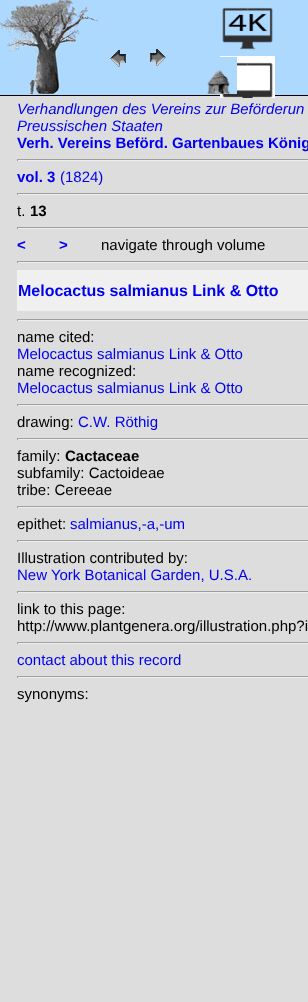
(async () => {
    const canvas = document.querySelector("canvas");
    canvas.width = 308;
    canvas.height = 1002;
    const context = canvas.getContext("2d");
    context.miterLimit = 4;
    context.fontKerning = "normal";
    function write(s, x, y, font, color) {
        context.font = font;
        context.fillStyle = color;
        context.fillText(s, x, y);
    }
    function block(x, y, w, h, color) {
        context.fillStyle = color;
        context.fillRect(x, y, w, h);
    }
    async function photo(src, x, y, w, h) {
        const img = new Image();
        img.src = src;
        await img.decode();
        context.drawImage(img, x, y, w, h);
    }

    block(0, 0, 308, 1002, "rgb(221, 221, 221)");
    block(0, 0, 308, 95, "rgb(173, 217, 254)");
    block(0, 95, 308, 1, "rgb(0, 0, 0)");
    await photo("media/1.png", 0, 0, 100, 94);
    await photo("media/2.png", 110, 50, 16, 17);
    await photo("media/3.png", 150, 49, 16, 17);
    await photo("media/4.png", 222, 7, 51, 43);
    await photo("media/5.png", 220, 56, 55, 42);
    await photo("media/6.png", 207, 57, 30, 37);
    write("Verhandlungen des Vereins zur Beförderun", 17, 114, "italic 15px Liberation Sans", "rgb(0, 0, 238)");
    write("Preussischen Staaten", 17, 131, "italic 15px Liberation Sans", "rgb(0, 0, 238)");
    write("Verh. Vereins Beförd. Gartenbaues König", 17, 148, "bold 15px Liberation Sans", "rgb(0, 0, 238)");
    block(17, 159, 291, 1, "rgb(159, 159, 159)");
    block(17, 160, 291, 1, "rgb(238, 238, 238)");
    block(17, 159, 1, 2, "rgb(159, 159, 159)");
    write("vol. 3", 17, 182, "bold 15px Liberation Sans", "rgb(0, 0, 238)");
    write("(1824)", 60, 182, "15px Liberation Sans", "rgb(0, 0, 238)");
    block(17, 193, 291, 1, "rgb(159, 159, 159)");
    block(17, 194, 291, 1, "rgb(238, 238, 238)");
    block(17, 193, 1, 2, "rgb(159, 159, 159)");
    write("t.", 17, 216, "15px Liberation Sans", "rgb(0, 0, 0)");
    write("13", 30, 216, "bold 15px Liberation Sans", "rgb(0, 0, 0)");
    block(17, 227, 291, 1, "rgb(159, 159, 159)");
    block(17, 228, 291, 1, "rgb(238, 238, 238)");
    block(17, 227, 1, 2, "rgb(159, 159, 159)");
    write("<", 17, 250, "bold 15px Liberation Sans", "rgb(0, 0, 238)");
    write(">", 59, 250, "bold 15px Liberation Sans", "rgb(0, 0, 238)");
    write("navigate through volume", 101, 250, "15px Liberation Sans", "rgb(0, 0, 0)");
    block(17, 261, 291, 1, "rgb(159, 159, 159)");
    block(17, 262, 291, 1, "rgb(238, 238, 238)");
    block(17, 261, 1, 2, "rgb(159, 159, 159)");
    block(17, 270, 291, 41, "rgb(240, 240, 240)");
    write("Melocactus salmianus Link & Otto", 18, 296, "bold 16px Liberation Sans", "rgb(0, 0, 238)");
    block(17, 319, 291, 1, "rgb(159, 159, 159)");
    block(17, 320, 291, 1, "rgb(238, 238, 238)");
    block(17, 319, 1, 2, "rgb(159, 159, 159)");
    write("name cited:", 17, 342, "15px Liberation Sans", "rgb(0, 0, 0)");
    write("Melocactus salmianus Link & Otto", 17, 359, "15px Liberation Sans", "rgb(0, 0, 238)");
    write("name recognized:", 17, 376, "15px Liberation Sans", "rgb(0, 0, 0)");
    write("Melocactus salmianus Link & Otto", 17, 393, "15px Liberation Sans", "rgb(0, 0, 238)");
    block(17, 404, 291, 1, "rgb(159, 159, 159)");
    block(17, 405, 291, 1, "rgb(238, 238, 238)");
    block(17, 404, 1, 2, "rgb(159, 159, 159)");
    write("drawing:", 17, 427, "15px Liberation Sans", "rgb(0, 0, 0)");
    write("C.W. Röthig", 78, 427, "15px Liberation Sans", "rgb(0, 0, 238)");
    block(17, 438, 291, 1, "rgb(159, 159, 159)");
    block(17, 439, 291, 1, "rgb(238, 238, 238)");
    block(17, 438, 1, 2, "rgb(159, 159, 159)");
    write("family:", 17, 461, "15px Liberation Sans", "rgb(0, 0, 0)");
    write("Cactaceae", 65, 461, "bold 15px Liberation Sans", "rgb(0, 0, 0)");
    write("subfamily: Cactoideae", 17, 478, "15px Liberation Sans", "rgb(0, 0, 0)");
    write("tribe: Cereeae", 17, 495, "15px Liberation Sans", "rgb(0, 0, 0)");
    block(17, 506, 291, 1, "rgb(159, 159, 159)");
    block(17, 507, 291, 1, "rgb(238, 238, 238)");
    block(17, 506, 1, 2, "rgb(159, 159, 159)");
    write("epithet:", 17, 529, "15px Liberation Sans", "rgb(0, 0, 0)");
    write("salmianus,-a,-um", 70, 529, "15px Liberation Sans", "rgb(0, 0, 238)");
    block(17, 540, 291, 1, "rgb(159, 159, 159)");
    block(17, 541, 291, 1, "rgb(238, 238, 238)");
    block(17, 540, 1, 2, "rgb(159, 159, 159)");
    write("Illustration contributed by:", 17, 563, "15px Liberation Sans", "rgb(0, 0, 0)");
    write("New York Botanical Garden, U.S.A.", 17, 580, "15px Liberation Sans", "rgb(0, 0, 238)");
    block(17, 591, 291, 1, "rgb(159, 159, 159)");
    block(17, 592, 291, 1, "rgb(238, 238, 238)");
    block(17, 591, 1, 2, "rgb(159, 159, 159)");
    write("link to this page:", 17, 614, "15px Liberation Sans", "rgb(0, 0, 0)");
    write("http://www.plantgenera.org/illustration.php?i", 17, 631, "15px Liberation Sans", "rgb(0, 0, 0)");
    block(17, 642, 291, 1, "rgb(159, 159, 159)");
    block(17, 643, 291, 1, "rgb(238, 238, 238)");
    block(17, 642, 1, 2, "rgb(159, 159, 159)");
    write("contact about this record", 17, 665, "15px Liberation Sans", "rgb(0, 0, 238)");
    block(17, 676, 291, 1, "rgb(159, 159, 159)");
    block(17, 677, 291, 1, "rgb(238, 238, 238)");
    block(17, 676, 1, 2, "rgb(159, 159, 159)");
    write("synonyms:", 17, 699, "15px Liberation Sans", "rgb(0, 0, 0)");
})();
